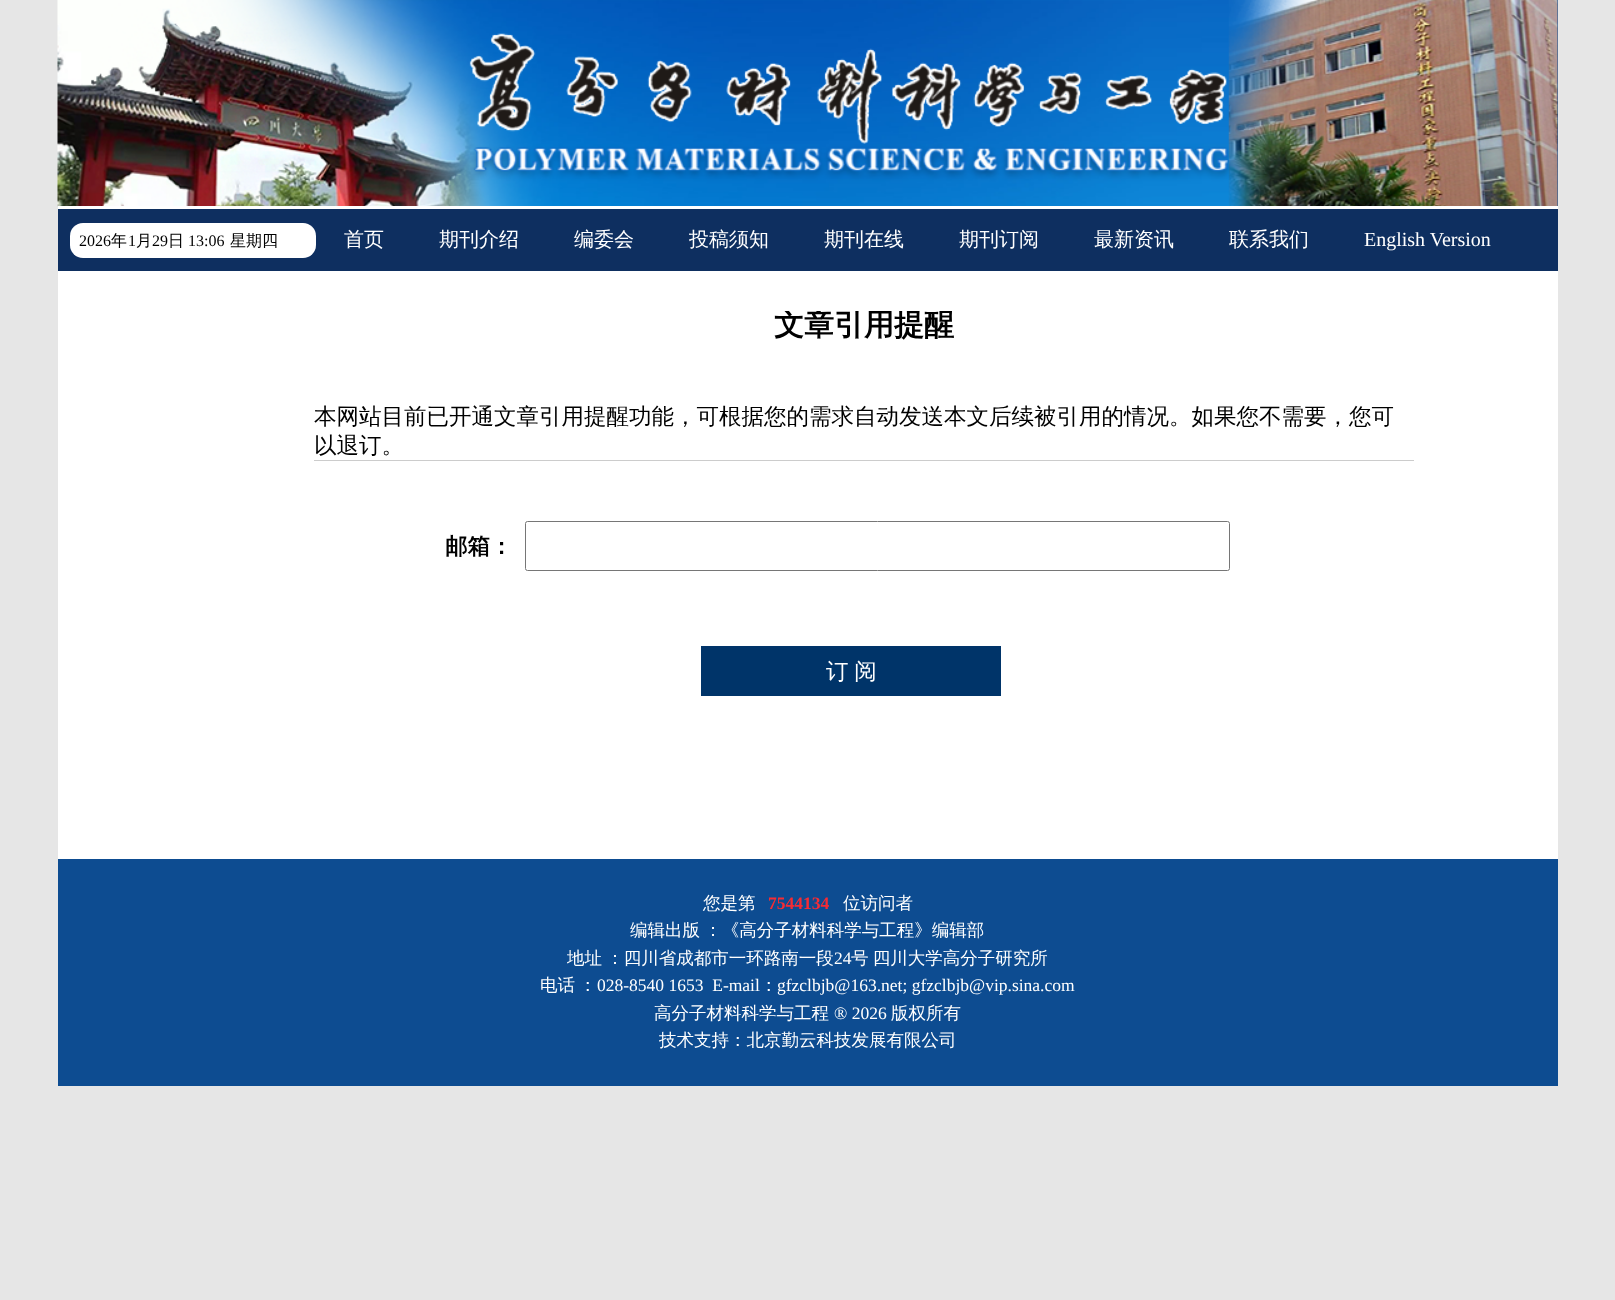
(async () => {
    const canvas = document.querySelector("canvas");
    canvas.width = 1615;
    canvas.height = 1300;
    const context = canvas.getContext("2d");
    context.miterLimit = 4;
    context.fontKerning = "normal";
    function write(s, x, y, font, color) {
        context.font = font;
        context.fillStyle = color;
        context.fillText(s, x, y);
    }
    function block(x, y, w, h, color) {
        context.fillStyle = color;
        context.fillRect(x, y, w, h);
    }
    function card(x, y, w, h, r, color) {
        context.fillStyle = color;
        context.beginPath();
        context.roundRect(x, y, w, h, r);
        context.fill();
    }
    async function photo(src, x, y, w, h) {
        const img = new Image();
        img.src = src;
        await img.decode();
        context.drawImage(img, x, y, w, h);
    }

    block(0, 0, 1615, 1300, "rgb(230, 230, 230)");
    block(58, 271, 1500, 588, "rgb(255, 255, 255)");
    block(1557, 0, 1, 206, "rgb(13, 76, 145)");
    await photo("media/1.png", 57, 0, 1501, 207);
    block(58, 209, 1500, 62, "rgb(14, 47, 96)");
    block(58, 206, 1500, 3, "rgb(255, 255, 255)");
    card(70, 223, 246, 35, 13, "rgb(255, 255, 255)");
    write("2026", 79, 246, "16px Liberation Serif", "rgb(0, 0, 0)");
    write("年", 111, 246, "500 16px WenQuanYi Zen Hei", "rgb(0, 0, 0)");
    write("1", 128, 246, "16px Liberation Serif", "rgb(0, 0, 0)");
    write("月", 136, 246, "500 16px WenQuanYi Zen Hei", "rgb(0, 0, 0)");
    write("29", 152, 246, "16px Liberation Serif", "rgb(0, 0, 0)");
    write("日", 168, 246, "500 16px WenQuanYi Zen Hei", "rgb(0, 0, 0)");
    write("13:06", 188, 246, "16px Liberation Serif", "rgb(0, 0, 0)");
    write("星期四", 230, 246, "500 16px WenQuanYi Zen Hei", "rgb(0, 0, 0)");
    write("首页", 344, 246, "500 20px WenQuanYi Zen Hei", "rgb(255, 255, 255)");
    write("期刊介绍", 439, 246, "500 20px WenQuanYi Zen Hei", "rgb(255, 255, 255)");
    write("编委会", 574, 246, "500 20px WenQuanYi Zen Hei", "rgb(255, 255, 255)");
    write("投稿须知", 689, 246, "500 20px WenQuanYi Zen Hei", "rgb(255, 255, 255)");
    write("期刊在线", 824, 246, "500 20px WenQuanYi Zen Hei", "rgb(255, 255, 255)");
    write("期刊订阅", 959, 246, "500 20px WenQuanYi Zen Hei", "rgb(255, 255, 255)");
    write("最新资讯", 1094, 246, "500 20px WenQuanYi Zen Hei", "rgb(255, 255, 255)");
    write("联系我们", 1229, 246, "500 20px WenQuanYi Zen Hei", "rgb(255, 255, 255)");
    write("English Version", 1364, 246, "20px Liberation Serif", "rgb(255, 255, 255)");
    context.save();
    context.beginPath();
    context.rect(170, 311, 1388, 548);
    context.clip();
    write("文章引用提醒", 774, 335, "bold 30px WenQuanYi Zen Hei", "rgb(0, 0, 0)");
    context.restore();
    write("本网站目前已开通文章引用提醒功能，可根据您的需求自动发送本文后续被引用的情况。如果您不需要，您可", 314, 424, "500 22.5px WenQuanYi Zen Hei", "rgb(0, 0, 0)");
    write("以退订。", 314, 453, "500 22.5px WenQuanYi Zen Hei", "rgb(0, 0, 0)");
    block(314, 460, 1100, 1, "rgb(204, 204, 204)");
    write("邮箱：", 445, 554, "bold 22.5px WenQuanYi Zen Hei", "rgb(0, 0, 0)");
    context.beginPath();
    context.roundRect(525.5, 521.5, 704, 49, 2);
    context.strokeStyle = "rgb(118, 118, 118)";
    context.stroke();
    block(701, 646, 300, 50, "rgb(0, 52, 105)");
    context.wordSpacing = "-1px";
    write("订 阅", 826, 679, "500 22.5px WenQuanYi Zen Hei", "rgb(255, 255, 255)");
    block(58, 859, 1500, 227, "rgb(13, 76, 145)");
    context.wordSpacing = "0px";
    write("您是第", 703, 909, "500 17.5px WenQuanYi Zen Hei", "rgb(255, 255, 255)");
    write("7544134", 768, 909, "bold 17.5px Liberation Serif", "rgb(247, 43, 52)");
    write("位访问者", 843, 909, "500 17.5px WenQuanYi Zen Hei", "rgb(255, 255, 255)");
    context.wordSpacing = "-1px";
    write("编辑出版 ：《高分子材料科学与工程》编辑部", 630, 936, "500 17.5px WenQuanYi Zen Hei", "rgb(255, 255, 255)");
    write("地址 ：四川省成都市一环路南一段", 567, 964, "500 17.5px WenQuanYi Zen Hei", "rgb(255, 255, 255)");
    context.wordSpacing = "0px";
    write("24", 834, 964, "17.5px Liberation Serif", "rgb(255, 255, 255)");
    context.wordSpacing = "-1px";
    write("号 四川大学高分子研究所", 851, 964, "500 17.5px WenQuanYi Zen Hei", "rgb(255, 255, 255)");
    context.wordSpacing = "0px";
    write("电话", 540, 991, "500 17.5px WenQuanYi Zen Hei", "rgb(255, 255, 255)");
    write("：", 579, 991, "500 17.5px WenQuanYi Zen Hei", "rgb(255, 255, 255)");
    write("028-8540 1653  E-mail", 597, 991, "17.5px Liberation Serif", "rgb(255, 255, 255)");
    write("：", 760, 991, "500 17.5px WenQuanYi Zen Hei", "rgb(255, 255, 255)");
    write("gfzclbjb@163.net; gfzclbjb@vip.sina.com", 777, 991, "17.5px Liberation Serif", "rgb(255, 255, 255)");
    write("高分子材料科学与工程", 654, 1019, "500 17.5px WenQuanYi Zen Hei", "rgb(255, 255, 255)");
    write("® 2026", 834, 1019, "17.5px Liberation Serif", "rgb(255, 255, 255)");
    write("版权所有", 891, 1019, "500 17.5px WenQuanYi Zen Hei", "rgb(255, 255, 255)");
    write("技术支持：北京勤云科技发展有限公司", 659, 1046, "500 17.5px WenQuanYi Zen Hei", "rgb(255, 255, 255)");
})();
